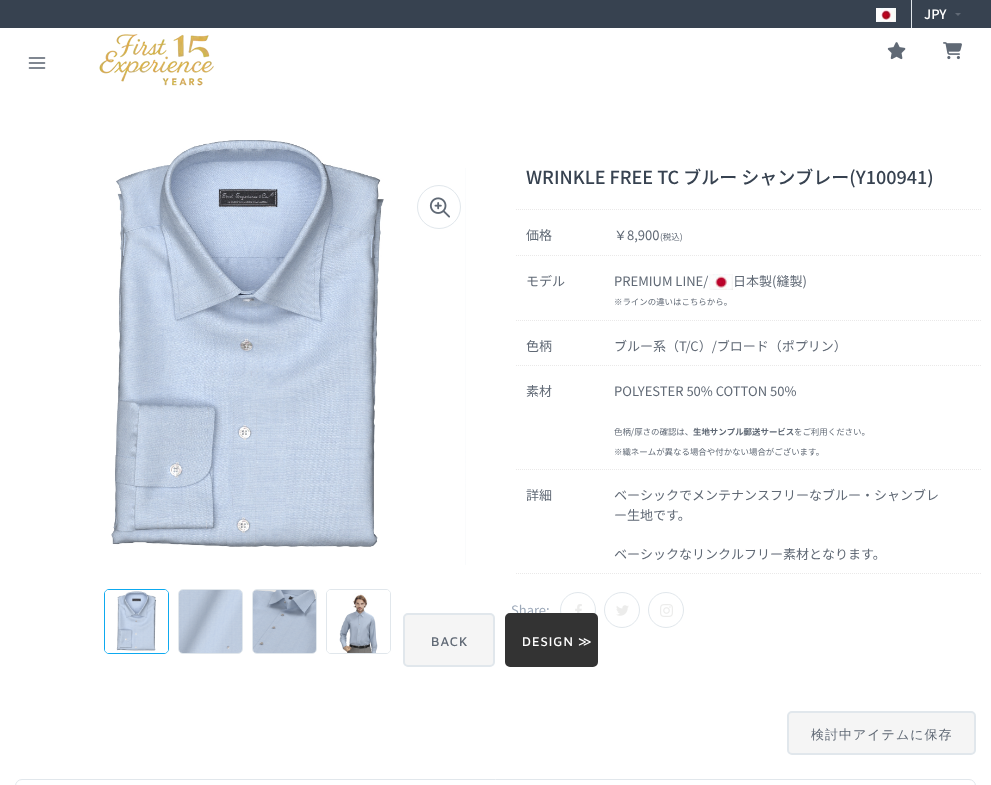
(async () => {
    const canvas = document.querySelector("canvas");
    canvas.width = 991;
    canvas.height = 785;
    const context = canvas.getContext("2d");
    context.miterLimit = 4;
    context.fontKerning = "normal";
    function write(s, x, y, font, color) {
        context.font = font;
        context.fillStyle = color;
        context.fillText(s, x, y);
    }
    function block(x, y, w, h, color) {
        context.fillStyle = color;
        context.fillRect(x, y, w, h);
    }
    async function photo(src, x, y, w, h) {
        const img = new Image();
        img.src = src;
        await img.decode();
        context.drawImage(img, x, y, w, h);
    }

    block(0, 0, 991, 785, "rgb(255, 255, 255)");
    block(0, 0, 991, 28, "rgb(55, 66, 80)");
    await photo("media/1.png", 876, 8, 20, 14);
    block(911, 0, 1, 28, "rgb(225, 231, 236)");
    write("JPY", 924, 19, "500 13px Noto Sans JP", "rgb(255, 255, 255)");
    context.fillStyle = "rgb(96, 105, 117)";
    context.beginPath();
    context.moveTo(955, 13);
    context.lineTo(961, 13);
    context.lineTo(958, 16);
    context.closePath();
    context.fill();
    await photo("media/2.png", 28, 57, 18, 12);
    await photo("media/3.png", 99, 34, 115, 52);
    await photo("media/4.png", 887, 42, 19, 18);
    await photo("media/5.png", 943, 42, 19, 18);
    await photo("media/6.png", 111, 140, 273, 407);
    await photo("media/7.png", 465, 168, 1, 397);
    context.beginPath();
    context.arc(439, 207, 21.5, 0, Math.PI * 2);
    context.strokeStyle = "rgb(225, 231, 236)";
    context.stroke();
    await photo("media/8.png", 429, 197, 21, 21);
    context.beginPath();
    context.roundRect(104.5, 589.5, 64, 64, 4.5);
    context.strokeStyle = "rgb(13, 169, 239)";
    context.stroke();
    await photo("media/9.png", 105, 590, 63, 63);
    context.beginPath();
    context.roundRect(178.5, 589.5, 64, 64, 4.5);
    context.strokeStyle = "rgb(225, 231, 236)";
    context.stroke();
    await photo("media/10.png", 179, 590, 63, 63);
    context.beginPath();
    context.roundRect(252.5, 589.5, 64, 64, 4.5);
    context.stroke();
    await photo("media/11.png", 253, 590, 63, 63);
    context.beginPath();
    context.roundRect(326.5, 589.5, 64, 64, 4.5);
    context.stroke();
    await photo("media/12.png", 327, 590, 63, 63);
    context.beginPath();
    context.moveTo(516, 209.5);
    context.lineTo(981, 209.5);
    context.strokeStyle = "rgb(234, 233, 233)";
    context.setLineDash([1, 1]);
    context.stroke();
    write("WRINKLE FREE TC ブルー シャンブレー(Y100941)", 526, 184, "500 18px Noto Sans JP", "rgb(55, 66, 80)");
    context.beginPath();
    context.moveTo(516, 255.5);
    context.lineTo(981, 255.5);
    context.stroke();
    write("価格", 526, 240, "13px Noto Sans JP", "rgb(96, 105, 117)");
    write("￥8,900", 614, 240, "13px Noto Sans JP", "rgb(96, 105, 117)");
    write("(税込)", 660, 240, "8.45px Noto Sans JP", "rgb(96, 105, 117)");
    context.beginPath();
    context.moveTo(516, 320.5);
    context.lineTo(981, 320.5);
    context.stroke();
    write("モデル", 526, 286, "13px Noto Sans JP", "rgb(96, 105, 117)");
    write("PREMIUM LINE/", 614, 286, "13px Noto Sans JP", "rgb(96, 105, 117)");
    await photo("media/13.png", 709, 274, 24, 16);
    write("日本製(縫製)", 733, 286, "13px Noto Sans JP", "rgb(96, 105, 117)");
    write("※ラインの違いはこちらから。", 614, 305, "8.45px Noto Sans JP", "rgb(96, 105, 117)");
    context.beginPath();
    context.moveTo(516, 365.5);
    context.lineTo(981, 365.5);
    context.stroke();
    write("色柄", 526, 351, "13px Noto Sans JP", "rgb(96, 105, 117)");
    write("ブルー系（T/C）/ブロード（ポプリン）", 614, 351, "13px Noto Sans JP", "rgb(96, 105, 117)");
    context.beginPath();
    context.moveTo(516, 469.5);
    context.lineTo(981, 469.5);
    context.stroke();
    write("素材", 526, 396, "13px Noto Sans JP", "rgb(96, 105, 117)");
    write("POLYESTER 50% COTTON 50%", 614, 396, "13px Noto Sans JP", "rgb(96, 105, 117)");
    write("色柄/厚さの確認は、", 614, 435, "8.45px Noto Sans JP", "rgb(96, 105, 117)");
    write("生地サンプル郵送サービス", 693, 435, "bold 8.45px Noto Sans JP", "rgb(96, 105, 117)");
    write("をご利用ください。", 794, 435, "8.45px Noto Sans JP", "rgb(96, 105, 117)");
    write("※織ネームが異なる場合や付かない場合がございます。", 614, 455, "8.45px Noto Sans JP", "rgb(96, 105, 117)");
    context.beginPath();
    context.moveTo(516, 573.5);
    context.lineTo(981, 573.5);
    context.stroke();
    write("詳細", 526, 500, "13px Noto Sans JP", "rgb(96, 105, 117)");
    write("ベーシックでメンテナンスフリーなブルー・シャンブレ", 614, 500, "13px Noto Sans JP", "rgb(96, 105, 117)");
    write("ー生地です。", 614, 520, "13px Noto Sans JP", "rgb(96, 105, 117)");
    write("ベーシックなリンクルフリー素材となります。", 614, 559, "13px Noto Sans JP", "rgb(96, 105, 117)");
    write("Share:", 511, 615, "13px Noto Sans JP", "rgb(157, 169, 185)");
    context.beginPath();
    context.arc(578, 610, 17.5, 0, Math.PI * 2);
    context.strokeStyle = "rgb(225, 231, 236)";
    context.setLineDash([]);
    context.stroke();
    await photo("media/14.png", 575, 604, 7, 9);
    context.beginPath();
    context.arc(622, 610, 17.5, 0, Math.PI * 2);
    context.stroke();
    await photo("media/15.png", 616, 605, 13, 11);
    context.beginPath();
    context.arc(666, 610, 17.5, 0, Math.PI * 2);
    context.stroke();
    await photo("media/16.png", 660, 604, 13, 13);
    context.fillStyle = "rgb(245, 245, 245)";
    context.beginPath();
    context.roundRect(788, 712, 187, 42, 4);
    context.fill();
    context.lineWidth = 2;
    context.stroke();
    context.letterSpacing = "1px";
    write("検討中アイテムに保存", 811, 739, "500 13px WenQuanYi Zen Hei", "rgb(96, 105, 117)");
    context.beginPath();
    context.roundRect(15.5, 779.5, 960, 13, 6.5);
    context.lineWidth = 1;
    context.stroke();
    context.fillStyle = "rgb(245, 245, 245)";
    context.beginPath();
    context.roundRect(404, 614, 90, 52, 4);
    context.fill();
    context.lineWidth = 2;
    context.stroke();
    write("BACK", 431, 646, "500 13px Maven Pro", "rgb(96, 105, 117)");
    context.fillStyle = "rgb(51, 51, 51)";
    context.beginPath();
    context.roundRect(506, 614, 91, 52, 4);
    context.fill();
    context.strokeStyle = "rgb(51, 51, 51)";
    context.stroke();
    write("DESIGN", 522, 646, "500 13px Maven Pro", "rgb(255, 255, 255)");
    write("≫", 578, 646, "13px DejaVu Sans", "rgb(255, 255, 255)");
})();
